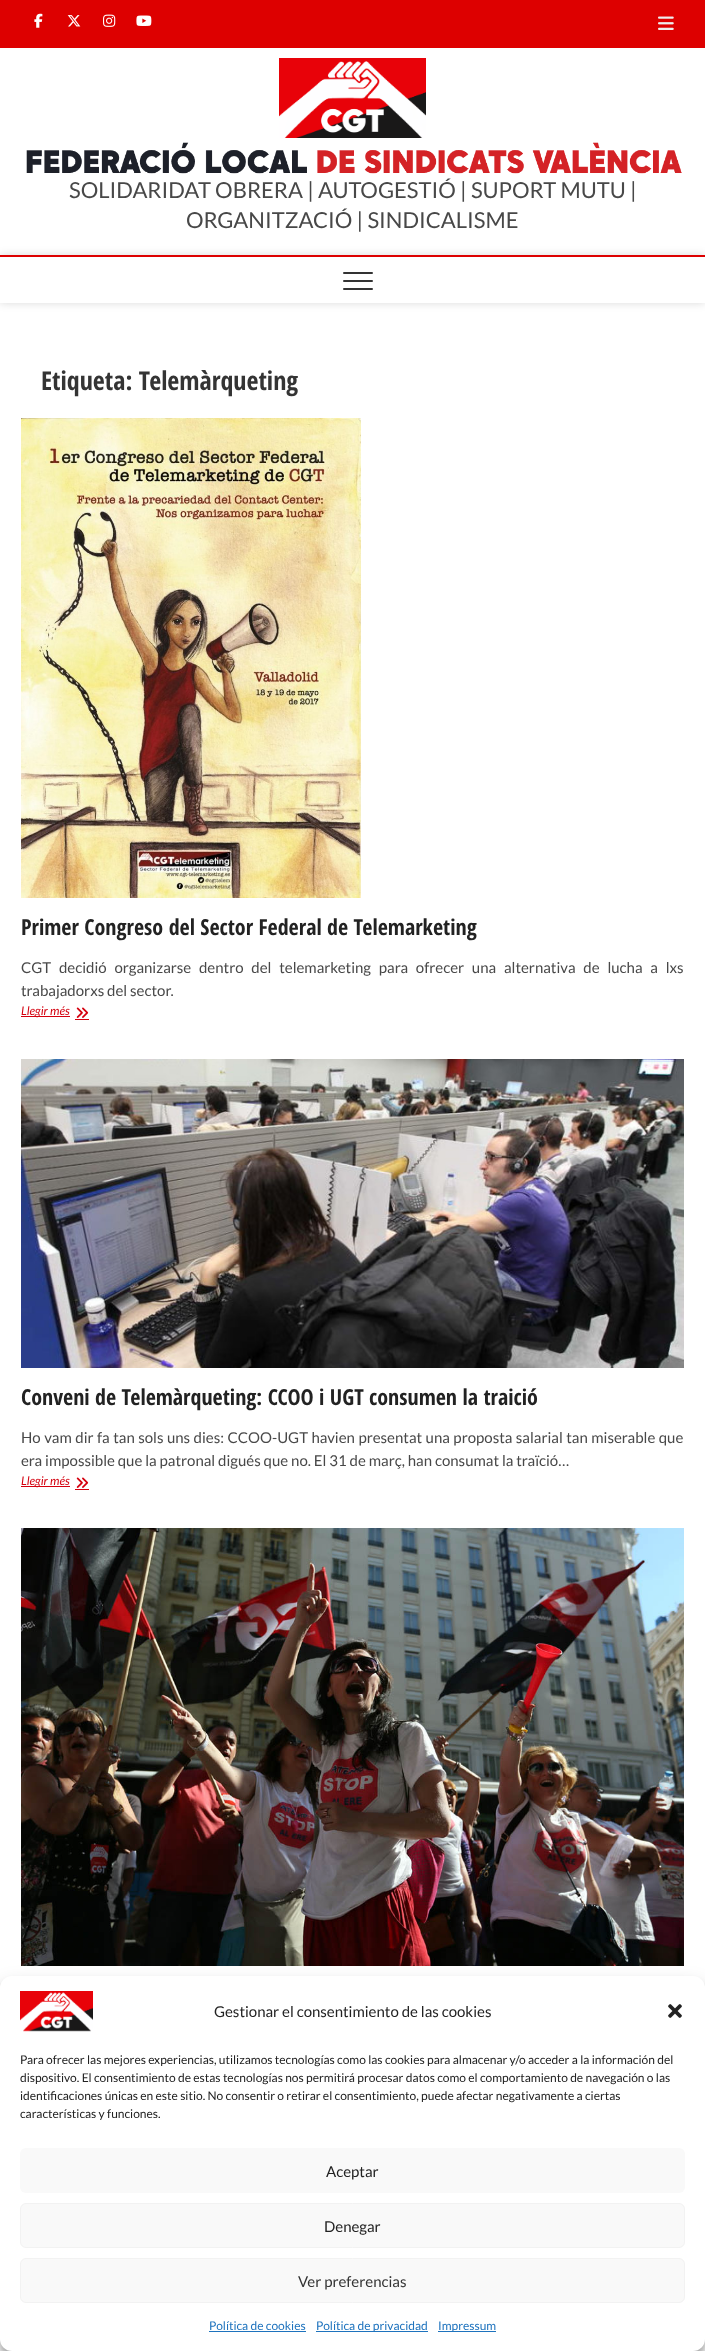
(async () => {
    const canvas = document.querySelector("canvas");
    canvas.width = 705;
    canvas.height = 2351;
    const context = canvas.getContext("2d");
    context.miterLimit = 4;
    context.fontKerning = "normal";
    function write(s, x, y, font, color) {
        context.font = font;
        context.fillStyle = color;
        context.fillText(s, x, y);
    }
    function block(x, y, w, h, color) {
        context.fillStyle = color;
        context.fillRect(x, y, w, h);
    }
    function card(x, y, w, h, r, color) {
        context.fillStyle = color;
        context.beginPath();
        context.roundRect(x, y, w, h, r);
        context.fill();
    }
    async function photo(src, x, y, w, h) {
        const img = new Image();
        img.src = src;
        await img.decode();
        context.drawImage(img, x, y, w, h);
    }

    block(0, 0, 705, 2351, "rgb(255, 255, 255)");
    block(0, 0, 705, 48, "rgb(221, 0, 0)");
    await photo("media/1.png", 34, 13, 9, 15);
    await photo("media/2.png", 67, 15, 14, 12);
    await photo("media/3.png", 103, 14, 13, 13);
    await photo("media/4.png", 136, 15, 16, 11);
    await photo("media/5.png", 658, 16, 16, 14);
    await photo("media/6.png", 279, 58, 147, 80);
    await photo("media/7.png", 26, 142, 656, 32);
    write("SOLIDARIDAT OBRERA | AUTOGESTIÓ | SUPORT MUTU |", 69, 198, "22px Lato", "rgb(72, 72, 72)");
    write("ORGANITZACIÓ | SINDICALISME", 186, 228, "22px Lato", "rgb(72, 72, 72)");
    context.save();
    context.beginPath();
    context.moveTo(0, 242);
    context.lineTo(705, 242);
    context.lineTo(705, 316);
    context.lineTo(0, 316);
    context.closePath();
    context.moveTo(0, 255);
    context.lineTo(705, 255);
    context.lineTo(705, 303);
    context.lineTo(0, 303);
    context.closePath();
    context.clip("evenodd");
    context.fillStyle = "rgba(0, 0, 0, 0.15)";
    context.filter = "blur(4px)";
    context.beginPath();
    context.rect(0, 255, 705, 48);
    context.fill();
    context.filter = "none";
    context.restore();
    block(0, 255, 705, 2, "rgb(221, 0, 0)");
    card(343, 280, 30, 2, 1, "rgb(51, 51, 51)");
    card(343, 272, 30, 2, 1, "rgb(51, 51, 51)");
    card(343, 288, 30, 2, 1, "rgb(51, 51, 51)");
    write("Etiqueta: Telemàrqueting", 41, 390, "bold 26px Open Sans Condensed", "rgb(52, 52, 52)");
    await photo("media/8.png", 21, 418, 340, 480);
    write("Primer Congreso del Sector Federal de Telemarketing", 21, 935, "bold 22px Open Sans Condensed", "rgb(34, 34, 34)");
    context.wordSpacing = "4.9px";
    write("CGT decidió organizarse dentro del telemarketing para ofrecer una alternativa de lucha a lxs", 21, 973, "15px Lato", "rgb(72, 72, 72)");
    context.wordSpacing = "0px";
    write("trabajadorxs del sector.", 21, 996, "15px Lato", "rgb(72, 72, 72)");
    block(21, 1016, 49, 1, "rgb(212, 0, 14)");
    write("Llegir més", 21, 1015, "italic 12px Lato", "rgb(212, 0, 14)");
    await photo("media/9.png", 76, 1007, 13, 11);
    block(75, 1019, 14, 1, "rgb(212, 0, 14)");
    await photo("media/10.png", 21, 1059, 663, 309);
    write("Conveni de Telemàrqueting: CCOO i UGT consumen la traició", 21, 1405, "bold 22px Open Sans Condensed", "rgb(34, 34, 34)");
    context.wordSpacing = "0.6px";
    write("Ho vam dir fa tan sols uns dies: CCOO-UGT havien presentat una proposta salarial tan miserable que", 21, 1443, "15px Lato", "rgb(72, 72, 72)");
    context.wordSpacing = "0px";
    write("era impossible que la patronal digués que no. El 31 de març, han consumat la traïció…", 21, 1466, "15px Lato", "rgb(72, 72, 72)");
    block(21, 1486, 49, 1, "rgb(212, 0, 14)");
    write("Llegir més", 21, 1485, "italic 12px Lato", "rgb(212, 0, 14)");
    await photo("media/9.png", 76, 1477, 13, 11);
    block(75, 1489, 14, 1, "rgb(212, 0, 14)");
    await photo("media/11.png", 21, 1528, 663, 438);
    context.fillStyle = "rgba(0, 0, 0, 0.23)";
    context.filter = "blur(3px)";
    context.beginPath();
    context.roundRect(0, 1982, 705, 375, 12);
    context.fill();
    context.filter = "none";
    context.fillStyle = "rgba(0, 0, 0, 0.19)";
    context.filter = "blur(10px)";
    context.beginPath();
    context.roundRect(0, 1986, 705, 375, 12);
    context.fill();
    context.filter = "none";
    card(0, 1976, 705, 375, 12, "rgb(255, 255, 255)");
    await photo("media/12.png", 20, 1991, 73, 41);
    write("Gestionar el consentimiento de las cookies", 214, 2017, "15px Lato", "rgb(34, 34, 34)");
    await photo("media/13.png", 668, 2004, 14, 14);
    write("Para ofrecer las mejores experiencias, utilizamos tecnologías como las cookies para almacenar y/o acceder a la información del", 20, 2064, "12px Lato", "rgb(34, 34, 34)");
    write("dispositivo. El consentimiento de estas tecnologías nos permitirá procesar datos como el comportamiento de navegación o las", 20, 2082, "12px Lato", "rgb(34, 34, 34)");
    write("identificaciones únicas en este sitio. No consentir o retirar el consentimiento, puede afectar negativamente a ciertas", 20, 2100, "12px Lato", "rgb(34, 34, 34)");
    write("características y funciones.", 20, 2118, "12px Lato", "rgb(34, 34, 34)");
    card(20, 2148, 665, 45, 6, "rgb(249, 249, 249)");
    write("Aceptar", 326, 2177, "15px Lato", "rgb(34, 34, 34)");
    context.fillStyle = "rgb(249, 249, 249)";
    context.beginPath();
    context.roundRect(20.5, 2203.5, 664, 44, 5.5);
    context.fill();
    context.strokeStyle = "rgb(242, 242, 242)";
    context.stroke();
    write("Denegar", 324, 2232, "15px Lato", "rgb(34, 34, 34)");
    context.fillStyle = "rgb(249, 249, 249)";
    context.beginPath();
    context.roundRect(20.5, 2258.5, 664, 44, 5.5);
    context.fill();
    context.stroke();
    write("Ver preferencias", 298, 2287, "15px Lato", "rgb(52, 52, 52)");
    write("Política de cookies", 209, 2330, "12px Lato", "rgb(30, 115, 190)");
    block(209, 2331, 97, 1, "rgb(30, 115, 190)");
    block(316, 2331, 112, 1, "rgb(30, 115, 190)");
    write("Política de privacidad", 316, 2330, "12px Lato", "rgb(30, 115, 190)");
    block(438, 2331, 58, 1, "rgb(30, 115, 190)");
    write("Impressum", 438, 2330, "12px Lato", "rgb(30, 115, 190)");
})();
